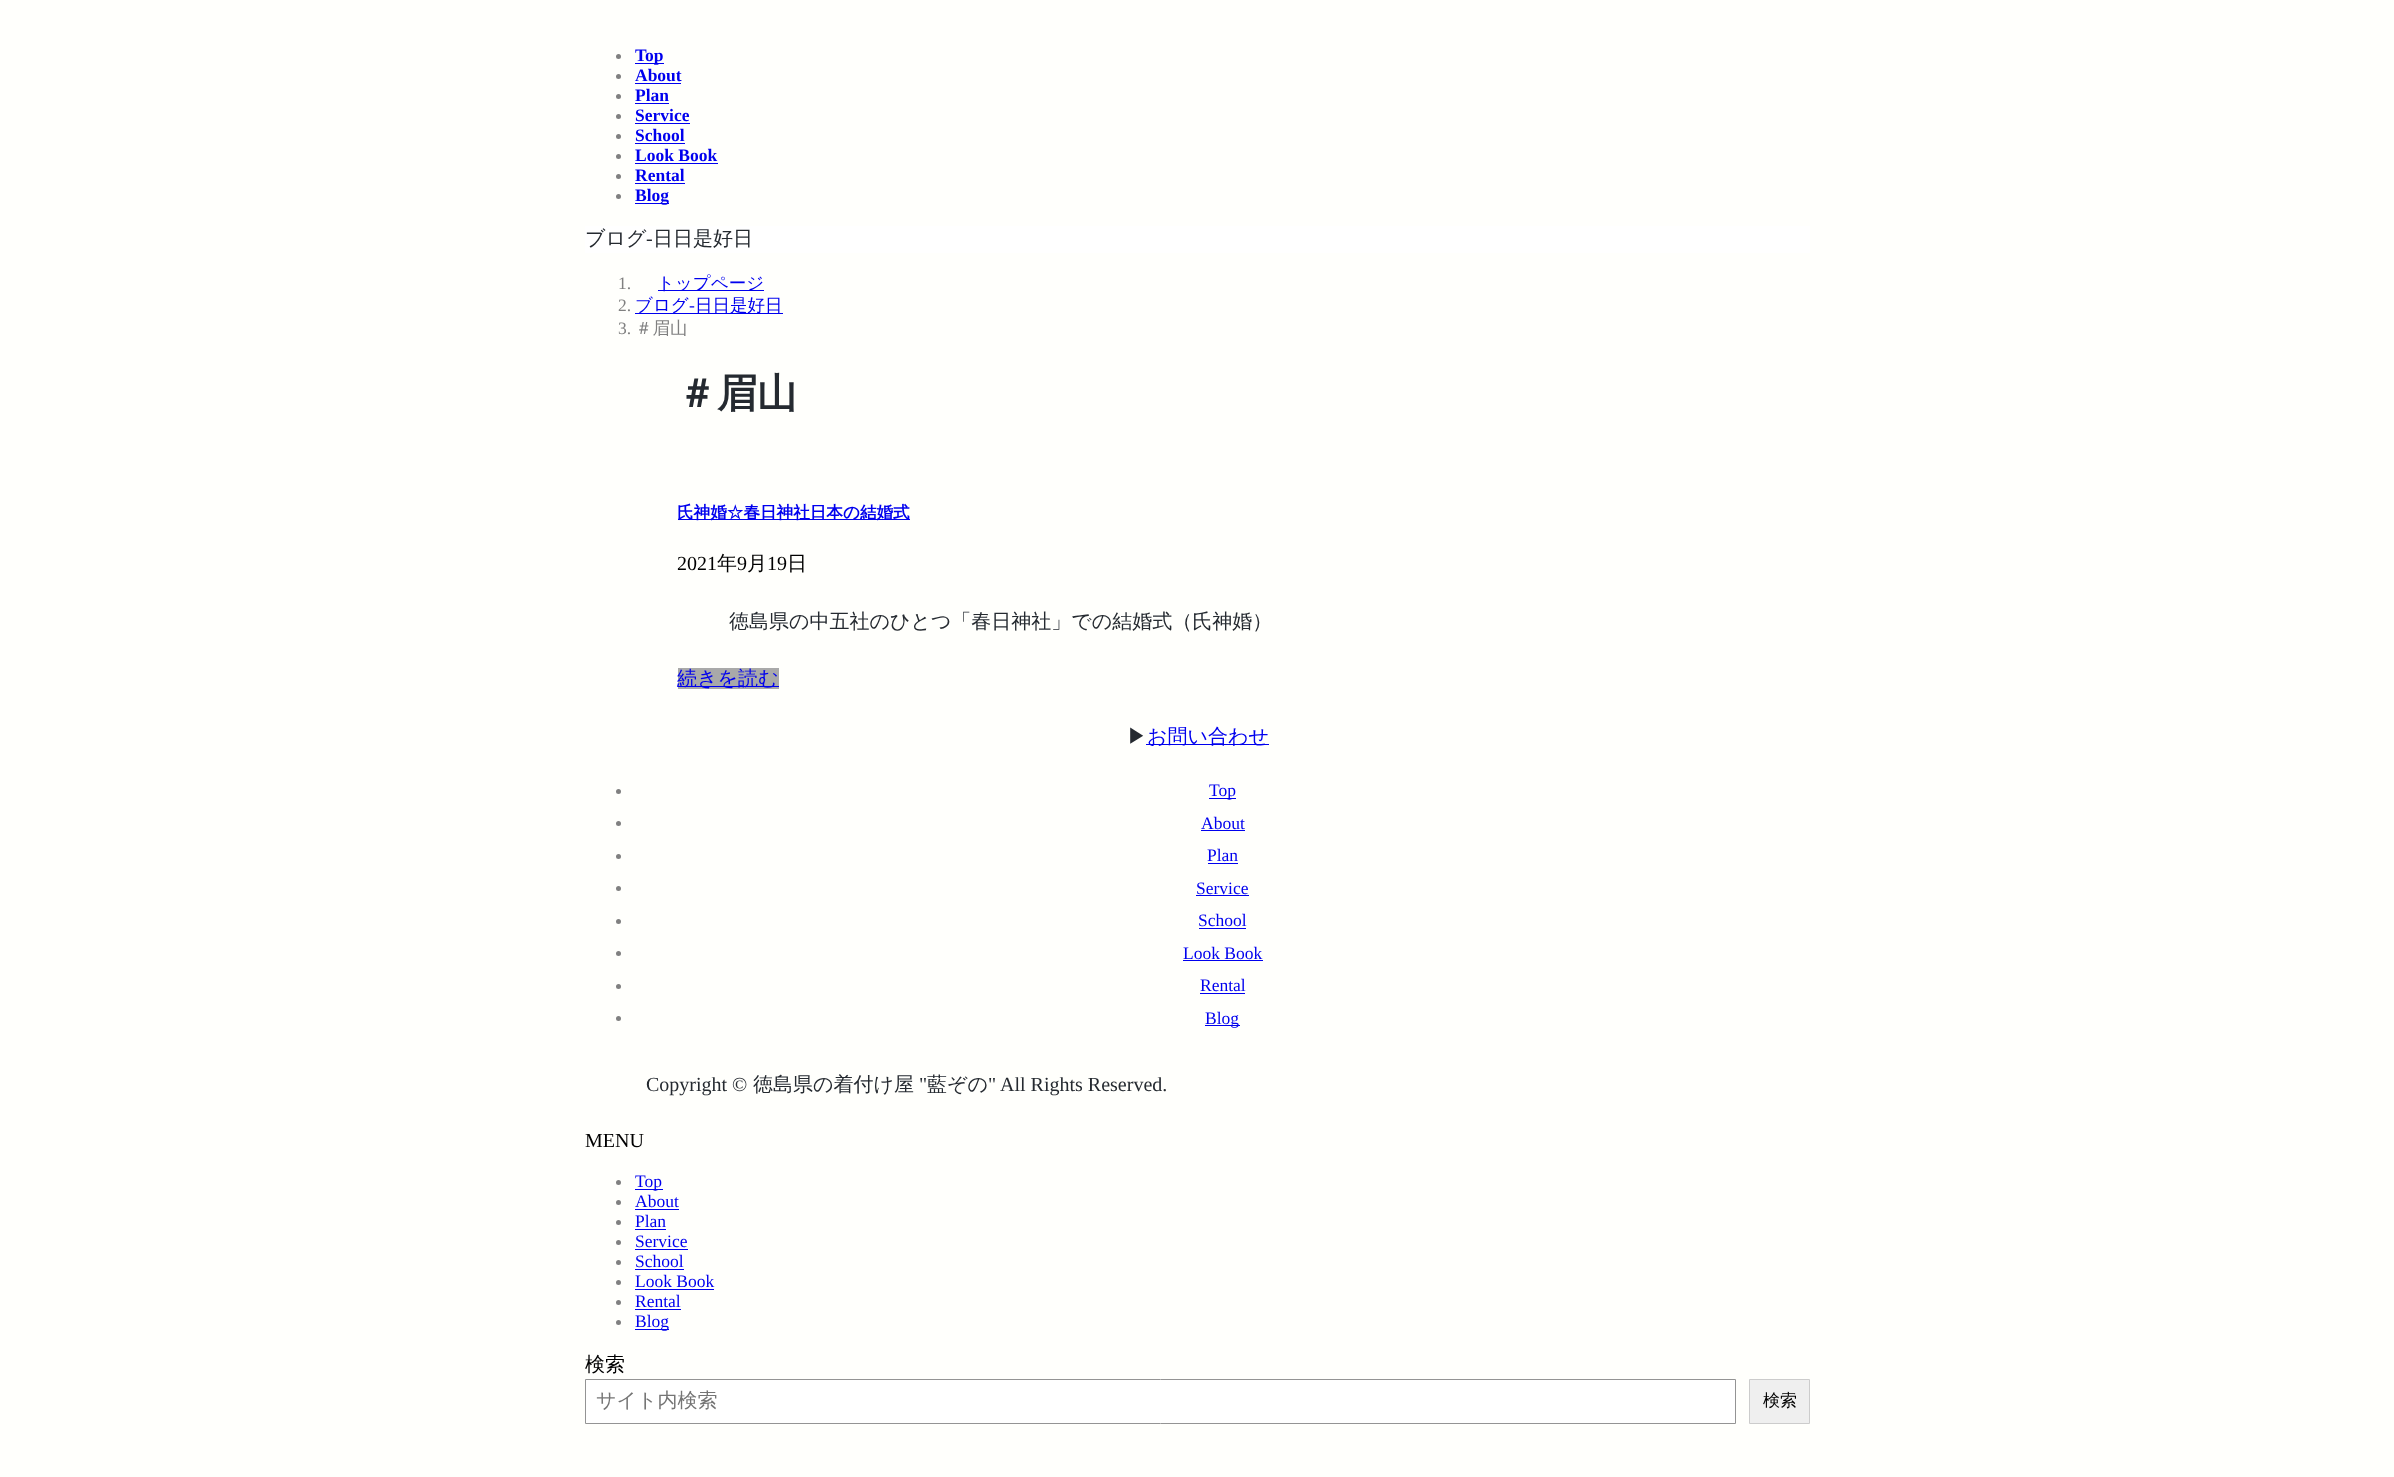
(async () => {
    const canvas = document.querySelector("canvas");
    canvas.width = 2394;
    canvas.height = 1477;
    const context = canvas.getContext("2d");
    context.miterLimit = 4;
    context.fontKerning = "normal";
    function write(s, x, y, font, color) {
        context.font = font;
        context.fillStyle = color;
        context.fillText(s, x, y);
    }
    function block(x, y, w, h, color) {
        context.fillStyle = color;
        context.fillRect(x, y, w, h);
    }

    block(0, 0, 2394, 1477, "rgb(255, 255, 252)");
    context.fillStyle = "rgb(128, 128, 128)";
    context.beginPath();
    context.arc(618.5, 56.5, 2.5, 0, Math.PI * 2);
    context.fill();
    block(635, 63, 29, 1, "rgb(0, 0, 238)");
    write("Top", 635, 61, "bold 17.5px Liberation Serif", "rgb(0, 0, 238)");
    context.fillStyle = "rgb(128, 128, 128)";
    context.beginPath();
    context.arc(618.5, 76.5, 2.5, 0, Math.PI * 2);
    context.fill();
    write("About", 635, 81, "bold 17.5px Liberation Serif", "rgb(0, 0, 238)");
    block(635, 83, 46, 1, "rgb(0, 0, 238)");
    context.fillStyle = "rgb(128, 128, 128)";
    context.beginPath();
    context.arc(618.5, 96.5, 2.5, 0, Math.PI * 2);
    context.fill();
    write("Plan", 635, 101, "bold 17.5px Liberation Serif", "rgb(0, 0, 238)");
    block(635, 103, 34, 1, "rgb(0, 0, 238)");
    context.fillStyle = "rgb(128, 128, 128)";
    context.beginPath();
    context.arc(618.5, 116.5, 2.5, 0, Math.PI * 2);
    context.fill();
    write("Service", 635, 121, "bold 17.5px Liberation Serif", "rgb(0, 0, 238)");
    block(635, 123, 55, 1, "rgb(0, 0, 238)");
    context.fillStyle = "rgb(128, 128, 128)";
    context.beginPath();
    context.arc(618.5, 136.5, 2.5, 0, Math.PI * 2);
    context.fill();
    write("School", 635, 141, "bold 17.5px Liberation Serif", "rgb(0, 0, 238)");
    block(635, 143, 50, 1, "rgb(0, 0, 238)");
    context.fillStyle = "rgb(128, 128, 128)";
    context.beginPath();
    context.arc(618.5, 156.5, 2.5, 0, Math.PI * 2);
    context.fill();
    write("Look Book", 635, 161, "bold 17.5px Liberation Serif", "rgb(0, 0, 238)");
    block(635, 163, 83, 1, "rgb(0, 0, 238)");
    context.fillStyle = "rgb(128, 128, 128)";
    context.beginPath();
    context.arc(618.5, 176.5, 2.5, 0, Math.PI * 2);
    context.fill();
    write("Rental", 635, 181, "bold 17.5px Liberation Serif", "rgb(0, 0, 238)");
    block(635, 183, 50, 1, "rgb(0, 0, 238)");
    context.fillStyle = "rgb(128, 128, 128)";
    context.beginPath();
    context.arc(618.5, 196.5, 2.5, 0, Math.PI * 2);
    context.fill();
    block(635, 203, 34, 1, "rgb(0, 0, 238)");
    write("Blog", 635, 201, "bold 17.5px Liberation Serif", "rgb(0, 0, 238)");
    block(585, 226, 1225, 27, "rgb(255, 255, 255)");
    write("ブログ", 585, 245, "500 20px WenQuanYi Zen Hei", "rgb(37, 42, 48)");
    write("-", 646, 245, "20px Liberation Serif", "rgb(37, 42, 48)");
    write("日日是好日", 653, 245, "500 20px WenQuanYi Zen Hei", "rgb(37, 42, 48)");
    write("1.", 618, 289, "17.5px Liberation Serif", "rgb(128, 128, 128)");
    block(658, 290, 106, 1, "rgb(0, 0, 238)");
    write("トップページ", 657, 289, "500 17.5px WenQuanYi Zen Hei", "rgb(0, 0, 238)");
    write("2.", 618, 311, "17.5px Liberation Serif", "rgb(128, 128, 128)");
    block(635, 313, 148, 1, "rgb(0, 0, 238)");
    write("ブログ", 635, 311, "500 17.5px WenQuanYi Zen Hei", "rgb(0, 0, 238)");
    write("-", 689, 311, "17.5px Liberation Serif", "rgb(0, 0, 238)");
    write("日日是好日", 695, 311, "500 17.5px WenQuanYi Zen Hei", "rgb(0, 0, 238)");
    write("3.", 618, 334, "17.5px Liberation Serif", "rgb(128, 128, 128)");
    write("＃眉山", 635, 334, "500 17.5px WenQuanYi Zen Hei", "rgb(128, 128, 128)");
    write("＃眉山", 677, 407, "bold 40px WenQuanYi Zen Hei", "rgb(37, 42, 48)");
    block(678, 519, 232, 1, "rgb(0, 0, 238)");
    write("氏神婚☆春日神社日本の結婚式", 677, 518, "bold 16.6px WenQuanYi Zen Hei", "rgb(0, 0, 238)");
    write("2021", 677, 570, "20px Liberation Serif", "rgb(0, 0, 0)");
    write("年", 717, 570, "500 20px WenQuanYi Zen Hei", "rgb(0, 0, 0)");
    write("9", 737, 570, "20px Liberation Serif", "rgb(0, 0, 0)");
    write("月", 747, 570, "500 20px WenQuanYi Zen Hei", "rgb(0, 0, 0)");
    write("19", 767, 570, "20px Liberation Serif", "rgb(0, 0, 0)");
    write("日", 787, 570, "500 20px WenQuanYi Zen Hei", "rgb(0, 0, 0)");
    write("徳島県の中五社のひとつ「春日神社」での結婚式（氏神婚）", 729, 628, "500 20px WenQuanYi Zen Hei", "rgb(37, 42, 48)");
    block(678, 668, 101, 21, "rgb(169, 169, 169)");
    block(678, 686, 101, 1, "rgb(0, 0, 238)");
    write("続きを読む", 677, 685, "500 20px WenQuanYi Zen Hei", "rgb(0, 0, 238)");
    write("▶︎", 1127, 743, "500 20px WenQuanYi Zen Hei", "rgb(37, 42, 48)");
    block(1146, 744, 123, 1, "rgb(0, 0, 238)");
    write("お問い合わせ", 1147, 743, "500 20px WenQuanYi Zen Hei", "rgb(0, 0, 238)");
    context.fillStyle = "rgb(128, 128, 128)";
    context.beginPath();
    context.arc(618.5, 791.5, 2.5, 0, Math.PI * 2);
    context.fill();
    block(1209, 798, 27, 1, "rgb(0, 0, 238)");
    write("Top", 1209, 796, "17.5px Liberation Serif", "rgb(0, 0, 238)");
    context.fillStyle = "rgb(128, 128, 128)";
    context.beginPath();
    context.arc(618.5, 823.5, 2.5, 0, Math.PI * 2);
    context.fill();
    write("About", 1201, 829, "17.5px Liberation Serif", "rgb(0, 0, 238)");
    block(1201, 830, 44, 1, "rgb(0, 0, 238)");
    context.fillStyle = "rgb(128, 128, 128)";
    context.beginPath();
    context.arc(618.5, 856.5, 2.5, 0, Math.PI * 2);
    context.fill();
    write("Plan", 1207, 861, "17.5px Liberation Serif", "rgb(0, 0, 238)");
    block(1208, 863, 30, 1, "rgb(0, 0, 238)");
    context.fillStyle = "rgb(128, 128, 128)";
    context.beginPath();
    context.arc(618.5, 888.5, 2.5, 0, Math.PI * 2);
    context.fill();
    write("Service", 1196, 894, "17.5px Liberation Serif", "rgb(0, 0, 238)");
    block(1196, 895, 53, 1, "rgb(0, 0, 238)");
    context.fillStyle = "rgb(128, 128, 128)";
    context.beginPath();
    context.arc(618.5, 921.5, 2.5, 0, Math.PI * 2);
    context.fill();
    write("School", 1198, 926, "17.5px Liberation Serif", "rgb(0, 0, 238)");
    block(1199, 928, 47, 1, "rgb(0, 0, 238)");
    context.fillStyle = "rgb(128, 128, 128)";
    context.beginPath();
    context.arc(618.5, 953.5, 2.5, 0, Math.PI * 2);
    context.fill();
    write("Look Book", 1183, 959, "17.5px Liberation Serif", "rgb(0, 0, 238)");
    block(1183, 960, 80, 1, "rgb(0, 0, 238)");
    context.fillStyle = "rgb(128, 128, 128)";
    context.beginPath();
    context.arc(618.5, 986.5, 2.5, 0, Math.PI * 2);
    context.fill();
    write("Rental", 1200, 991, "17.5px Liberation Serif", "rgb(0, 0, 238)");
    block(1200, 993, 45, 1, "rgb(0, 0, 238)");
    context.fillStyle = "rgb(128, 128, 128)";
    context.beginPath();
    context.arc(618.5, 1018.5, 2.5, 0, Math.PI * 2);
    context.fill();
    block(1205, 1025, 35, 1, "rgb(0, 0, 238)");
    write("Blog", 1205, 1024, "17.5px Liberation Serif", "rgb(0, 0, 238)");
    write("Copyright ©", 646, 1091, "20px Liberation Serif", "rgb(37, 42, 48)");
    write("徳島県の着付け屋", 753, 1091, "500 20px WenQuanYi Zen Hei", "rgb(37, 42, 48)");
    write("\"", 919, 1091, "20px Liberation Serif", "rgb(37, 42, 48)");
    write("藍ぞの", 927, 1091, "500 20px WenQuanYi Zen Hei", "rgb(37, 42, 48)");
    write("\" All Rights Reserved.", 988, 1091, "20px Liberation Serif", "rgb(37, 42, 48)");
    write("MENU", 585, 1147, "20px Liberation Serif", "rgb(0, 0, 0)");
    context.fillStyle = "rgb(128, 128, 128)";
    context.beginPath();
    context.arc(618.5, 1182.5, 2.5, 0, Math.PI * 2);
    context.fill();
    block(635, 1189, 28, 1, "rgb(0, 0, 238)");
    write("Top", 635, 1187, "17.5px Liberation Serif", "rgb(0, 0, 238)");
    context.fillStyle = "rgb(128, 128, 128)";
    context.beginPath();
    context.arc(618.5, 1202.5, 2.5, 0, Math.PI * 2);
    context.fill();
    write("About", 635, 1207, "17.5px Liberation Serif", "rgb(0, 0, 238)");
    block(635, 1209, 44, 1, "rgb(0, 0, 238)");
    context.fillStyle = "rgb(128, 128, 128)";
    context.beginPath();
    context.arc(618.5, 1222.5, 2.5, 0, Math.PI * 2);
    context.fill();
    write("Plan", 635, 1227, "17.5px Liberation Serif", "rgb(0, 0, 238)");
    block(635, 1229, 31, 1, "rgb(0, 0, 238)");
    context.fillStyle = "rgb(128, 128, 128)";
    context.beginPath();
    context.arc(618.5, 1242.5, 2.5, 0, Math.PI * 2);
    context.fill();
    write("Service", 635, 1247, "17.5px Liberation Serif", "rgb(0, 0, 238)");
    block(635, 1249, 53, 1, "rgb(0, 0, 238)");
    context.fillStyle = "rgb(128, 128, 128)";
    context.beginPath();
    context.arc(618.5, 1262.5, 2.5, 0, Math.PI * 2);
    context.fill();
    write("School", 635, 1267, "17.5px Liberation Serif", "rgb(0, 0, 238)");
    block(635, 1269, 49, 1, "rgb(0, 0, 238)");
    context.fillStyle = "rgb(128, 128, 128)";
    context.beginPath();
    context.arc(618.5, 1282.5, 2.5, 0, Math.PI * 2);
    context.fill();
    write("Look Book", 635, 1287, "17.5px Liberation Serif", "rgb(0, 0, 238)");
    block(635, 1289, 79, 1, "rgb(0, 0, 238)");
    context.fillStyle = "rgb(128, 128, 128)";
    context.beginPath();
    context.arc(618.5, 1302.5, 2.5, 0, Math.PI * 2);
    context.fill();
    write("Rental", 635, 1307, "17.5px Liberation Serif", "rgb(0, 0, 238)");
    block(635, 1309, 46, 1, "rgb(0, 0, 238)");
    context.fillStyle = "rgb(128, 128, 128)";
    context.beginPath();
    context.arc(618.5, 1322.5, 2.5, 0, Math.PI * 2);
    context.fill();
    block(635, 1329, 34, 1, "rgb(0, 0, 238)");
    write("Blog", 635, 1327, "17.5px Liberation Serif", "rgb(0, 0, 238)");
    write("検索", 585, 1371, "500 20px WenQuanYi Zen Hei", "rgb(0, 0, 0)");
    context.fillStyle = "rgb(255, 255, 255)";
    context.beginPath();
    context.rect(585.5, 1379.5, 1150, 44);
    context.fill();
    context.strokeStyle = "rgb(148, 148, 148)";
    context.stroke();
    write("サイト内検索", 596, 1407, "500 20px WenQuanYi Zen Hei", "rgb(117, 117, 117)");
    context.fillStyle = "rgb(239, 239, 239)";
    context.beginPath();
    context.rect(1749.5, 1379.5, 60, 44);
    context.fill();
    context.strokeStyle = "rgb(204, 204, 204)";
    context.stroke();
    write("検索", 1763, 1406, "500 17px WenQuanYi Zen Hei", "rgb(0, 0, 0)");
})();
